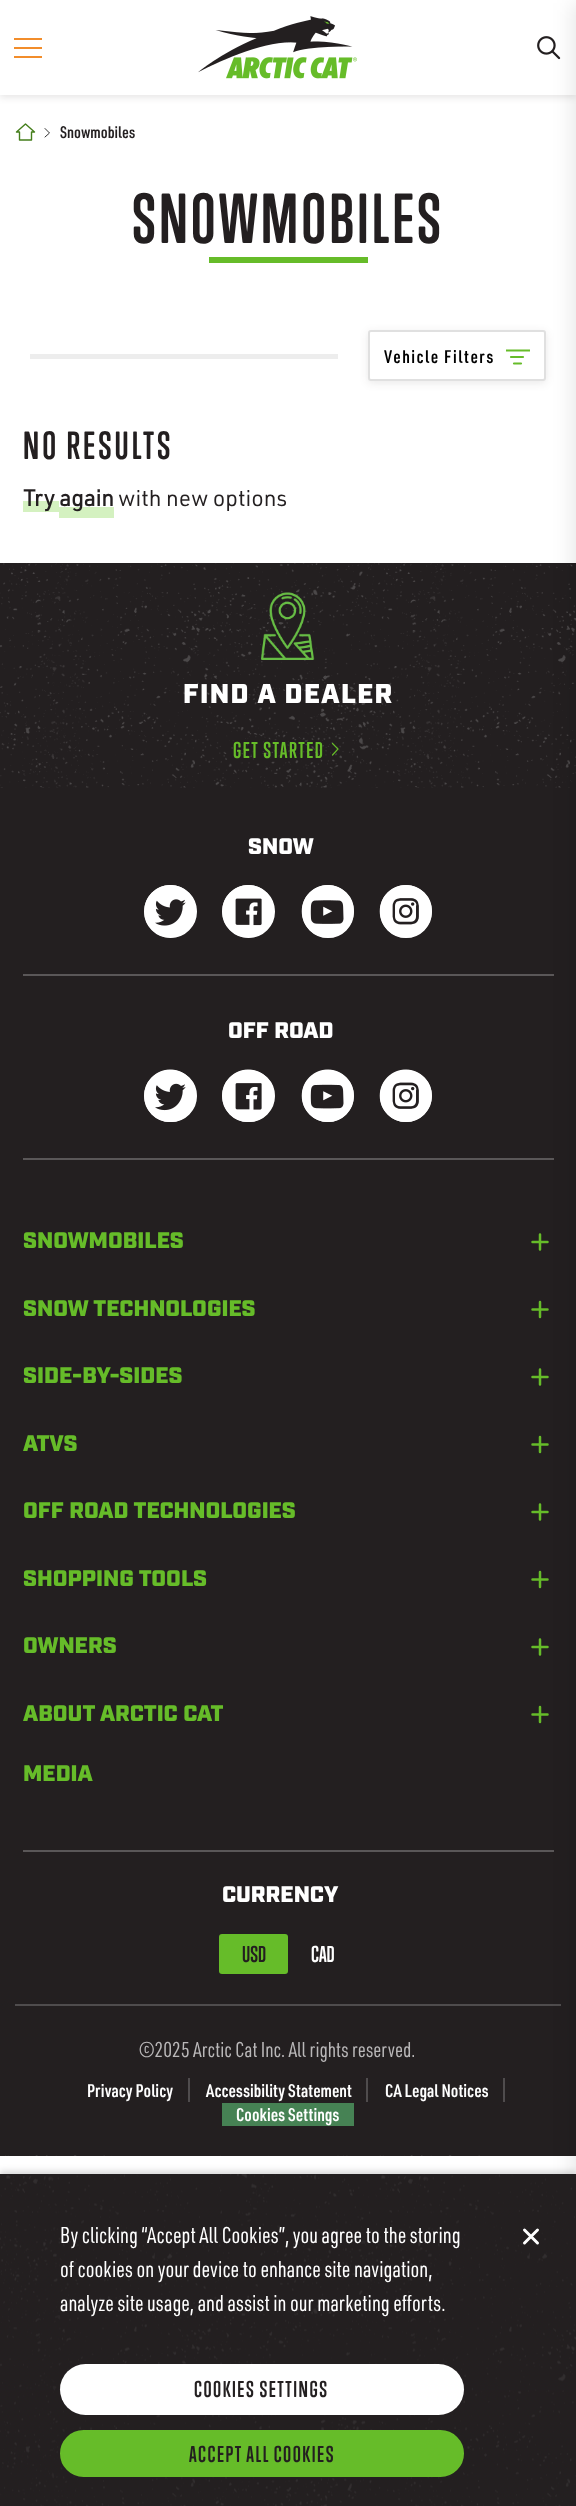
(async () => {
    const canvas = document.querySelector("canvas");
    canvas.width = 576;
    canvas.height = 2506;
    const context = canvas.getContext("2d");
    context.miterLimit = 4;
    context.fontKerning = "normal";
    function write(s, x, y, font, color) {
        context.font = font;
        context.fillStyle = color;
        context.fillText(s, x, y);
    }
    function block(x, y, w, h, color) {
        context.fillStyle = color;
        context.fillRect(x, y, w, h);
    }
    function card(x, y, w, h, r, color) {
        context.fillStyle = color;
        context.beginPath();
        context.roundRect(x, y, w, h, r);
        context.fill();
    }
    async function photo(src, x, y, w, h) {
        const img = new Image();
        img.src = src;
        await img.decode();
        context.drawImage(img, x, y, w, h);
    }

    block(0, 0, 576, 2506, "rgb(255, 255, 255)");
    context.fillStyle = "rgba(35, 31, 32, 0.1)";
    context.filter = "blur(3px)";
    context.beginPath();
    context.rect(0, 3, 576, 95);
    context.fill();
    context.filter = "none";
    block(0, 0, 576, 95, "rgb(255, 255, 255)");
    context.save();
    context.beginPath();
    context.rect(14, 32, 28, 33);
    context.clip();
    context.beginPath();
    context.moveTo(13.5, 57);
    context.lineTo(42, 57);
    context.moveTo(13.5, 48);
    context.lineTo(42, 48);
    context.moveTo(13.5, 39);
    context.lineTo(42, 39);
    context.strokeStyle = "rgb(242, 141, 43)";
    context.lineWidth = 1.9;
    context.lineCap = "round";
    context.stroke();
    context.restore();
    await photo("media/1.png", 198, 16, 159, 63);
    await photo("media/2.png", 537, 36, 24, 24);
    context.beginPath();
    context.moveTo(34.5, 132);
    context.lineTo(25.5, 124);
    context.lineTo(16.5, 132);
    context.lineTo(19.5, 132);
    context.lineTo(19.5, 140);
    context.lineTo(31.5, 140);
    context.lineTo(31.5, 132);
    context.closePath();
    context.strokeStyle = "rgb(68, 126, 27)";
    context.lineWidth = 1.4;
    context.lineJoin = "round";
    context.stroke();
    context.beginPath();
    context.moveTo(45, 128.5);
    context.lineTo(49.5, 133);
    context.lineTo(45, 137);
    context.strokeStyle = "rgb(51, 51, 51)";
    context.lineWidth = 1;
    context.lineCap = "round";
    context.lineJoin = "miter";
    context.stroke();
    write("Snowmobiles", 60, 138, "600 16.5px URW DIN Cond", "rgb(35, 31, 32)");
    context.letterSpacing = "3px";
    write("SNOWMOBILES", 132, 243, "bold 64.5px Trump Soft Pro", "rgb(35, 31, 32)");
    block(209, 257, 159, 6, "rgb(102, 188, 41)");
    block(30, 354, 308, 5, "rgb(237, 237, 237)");
    context.fillStyle = "rgba(35, 31, 32, 0.1)";
    context.filter = "blur(4px)";
    context.beginPath();
    context.roundRect(368, 332, 178, 51, 3);
    context.fill();
    context.filter = "none";
    context.fillStyle = "rgb(255, 255, 255)";
    context.beginPath();
    context.roundRect(369, 331, 176, 49, 2);
    context.fill();
    context.strokeStyle = "rgb(224, 224, 224)";
    context.lineWidth = 2;
    context.stroke();
    context.letterSpacing = "1.5px";
    write("Vehicle Filters", 384, 363, "600 18px URW DIN Cond", "rgb(0, 0, 0)");
    context.save();
    context.beginPath();
    context.rect(506, 345, 24, 23);
    context.clip();
    context.beginPath();
    context.moveTo(505.5, 350.5);
    context.lineTo(529.5, 350.5);
    context.strokeStyle = "rgb(102, 188, 41)";
    context.lineWidth = 2.2;
    context.stroke();
    context.restore();
    context.beginPath();
    context.moveTo(514, 363.5);
    context.lineTo(521, 363.5);
    context.moveTo(511, 357);
    context.lineTo(523, 357);
    context.strokeStyle = "rgb(102, 188, 41)";
    context.lineWidth = 2.2;
    context.stroke();
    block(0, 563, 576, 1593, "rgb(35, 31, 32)");
    await photo("media/3.png", 0, 563, 576, 225);
    block(23, 974, 531, 2, "rgb(90, 87, 88)");
    block(23, 1158, 531, 2, "rgb(90, 87, 88)");
    context.beginPath();
    context.moveTo(540, 1249.5);
    context.lineTo(540, 1234.5);
    context.moveTo(532.5, 1242);
    context.lineTo(547.5, 1242);
    context.lineWidth = 2.5;
    context.stroke();
    context.beginPath();
    context.moveTo(540, 1317);
    context.lineTo(540, 1302);
    context.moveTo(532.5, 1309.5);
    context.lineTo(547.5, 1309.5);
    context.stroke();
    context.beginPath();
    context.moveTo(540, 1384.5);
    context.lineTo(540, 1369.5);
    context.moveTo(532.5, 1377);
    context.lineTo(547.5, 1377);
    context.stroke();
    context.beginPath();
    context.moveTo(540, 1452);
    context.lineTo(540, 1437);
    context.moveTo(532.5, 1444.5);
    context.lineTo(547.5, 1444.5);
    context.stroke();
    context.beginPath();
    context.moveTo(540, 1519.5);
    context.lineTo(540, 1504.5);
    context.moveTo(532.5, 1512);
    context.lineTo(547.5, 1512);
    context.stroke();
    context.beginPath();
    context.moveTo(540, 1587);
    context.lineTo(540, 1572);
    context.moveTo(532.5, 1579.5);
    context.lineTo(547.5, 1579.5);
    context.stroke();
    context.beginPath();
    context.moveTo(540, 1654.5);
    context.lineTo(540, 1639.5);
    context.moveTo(532.5, 1647);
    context.lineTo(547.5, 1647);
    context.stroke();
    context.beginPath();
    context.moveTo(540, 1722);
    context.lineTo(540, 1707);
    context.moveTo(532.5, 1714.5);
    context.lineTo(547.5, 1714.5);
    context.stroke();
    block(23, 1850, 531, 2, "rgb(90, 87, 88)");
    block(15, 2004, 546, 2, "rgb(79, 76, 77)");
    context.fillStyle = "rgba(0, 0, 0, 0.09)";
    context.filter = "blur(10px)";
    context.beginPath();
    context.rect(572, 3, 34, 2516);
    context.fill();
    context.filter = "none";
    context.letterSpacing = "3px";
    write("NO RESULTS", 23, 459, "bold 36px Trump Soft Pro", "rgb(35, 31, 32)");
    block(23, 501, 36, 11, "rgb(212, 241, 192)");
    block(59, 507, 55, 11, "rgb(212, 241, 192)");
    context.letterSpacing = "0px";
    write("Try again", 23, 506, "bold 22.5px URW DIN", "rgb(35, 31, 32)");
    write("with new options", 118, 506, "22.5px URW DIN", "rgb(35, 31, 32)");
    await photo("media/4.png", 261, 592, 54, 68);
    context.letterSpacing = "1.4px";
    write("FIND A DEALER", 183, 703, "900 27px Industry", "rgb(255, 255, 255)");
    context.letterSpacing = "1.5px";
    write("GET STARTED", 233, 758, "bold 21px Trump Soft Pro", "rgb(102, 188, 41)");
    context.beginPath();
    context.moveTo(332.5, 743.5);
    context.lineTo(338, 749);
    context.lineTo(332.5, 755);
    context.lineWidth = 1.2;
    context.stroke();
    context.letterSpacing = "0px";
    write("SNOW", 248, 854, "900 22.5px Industry", "rgb(255, 255, 255)");
    context.beginPath();
    context.arc(170.5, 911.5, 23.5, 0, Math.PI * 2);
    context.strokeStyle = "rgb(255, 255, 255)";
    context.lineWidth = 6;
    context.stroke();
    await photo("media/5.png", 144, 885, 53, 53);
    context.beginPath();
    context.arc(248.5, 911.5, 23.5, 0, Math.PI * 2);
    context.stroke();
    await photo("media/6.png", 222, 885, 53, 53);
    context.beginPath();
    context.roundRect(305, 888, 46, 47, 23);
    context.stroke();
    await photo("media/7.png", 301, 885, 53, 53);
    context.beginPath();
    context.roundRect(383, 888, 46, 47, 23);
    context.stroke();
    await photo("media/8.png", 379, 885, 53, 53);
    write("OFF ROAD", 228, 1038, "900 22.5px Industry", "rgb(255, 255, 255)");
    context.beginPath();
    context.roundRect(147, 1073, 47, 46, 23);
    context.stroke();
    await photo("media/9.png", 144, 1069, 53, 53);
    context.beginPath();
    context.roundRect(225, 1073, 47, 46, 23);
    context.stroke();
    await photo("media/10.png", 222, 1069, 53, 53);
    context.beginPath();
    context.arc(328, 1096, 23, 0, Math.PI * 2);
    context.stroke();
    await photo("media/11.png", 301, 1069, 53, 53);
    context.beginPath();
    context.arc(406, 1096, 23, 0, Math.PI * 2);
    context.stroke();
    await photo("media/12.png", 379, 1069, 53, 53);
    write("SNOWMOBILES", 23, 1248, "900 22.5px Industry", "rgb(102, 188, 41)");
    write("SNOW TECHNOLOGIES", 23, 1316, "900 22.5px Industry", "rgb(102, 188, 41)");
    write("SIDE-BY-SIDES", 23, 1383, "900 22.5px Industry", "rgb(102, 188, 41)");
    write("ATVS", 23, 1451, "900 22.5px Industry", "rgb(102, 188, 41)");
    write("OFF ROAD TECHNOLOGIES", 23, 1518, "900 22.5px Industry", "rgb(102, 188, 41)");
    write("SHOPPING TOOLS", 23, 1586, "900 22.5px Industry", "rgb(102, 188, 41)");
    write("OWNERS", 23, 1653, "900 22.5px Industry", "rgb(102, 188, 41)");
    write("ABOUT ARCTIC CAT", 23, 1721, "900 22.5px Industry", "rgb(102, 188, 41)");
    write("MEDIA", 23, 1781, "900 22.5px Industry", "rgb(102, 188, 41)");
    write("CURRENCY", 222, 1902, "900 22.5px Industry", "rgb(255, 255, 255)");
    card(219, 1934, 69, 40, 3, "rgb(102, 188, 41)");
    write("USD", 242, 1962, "bold 21px Trump Soft Pro", "rgb(35, 31, 32)");
    write("CAD", 311, 1962, "bold 21px Trump Soft Pro", "rgb(255, 255, 255)");
    write("©2025 Arctic Cat Inc. All rights reserved.", 139, 2057, "21px URW DIN Cond", "rgb(185, 183, 184)");
    write("Privacy Policy", 87, 2097, "600 18px URW DIN Cond", "rgb(255, 255, 255)");
    block(188, 2078, 2, 24, "rgb(79, 76, 77)");
    write("Accessibility Statement", 206, 2097, "600 18px URW DIN Cond", "rgb(255, 255, 255)");
    block(366, 2078, 2, 24, "rgb(79, 76, 77)");
    write("CA Legal Notices", 385, 2097, "600 18px URW DIN Cond", "rgb(255, 255, 255)");
    block(503, 2078, 2, 24, "rgb(79, 76, 77)");
    block(222, 2103, 132, 23, "rgb(70, 130, 84)");
    write("Cookies Settings", 236, 2121, "600 18px URW DIN Cond", "rgb(255, 255, 255)");
    await photo("media/13.png", 5, 2155, 475, 1);
    context.fillStyle = "rgba(0, 0, 0, 0.15)";
    context.filter = "blur(3px)";
    context.beginPath();
    context.rect(0, 2171, 576, 333);
    context.fill();
    context.filter = "none";
    block(0, 2174, 576, 332, "rgb(35, 31, 32)");
    await photo("media/14.png", 0, 2174, 576, 332);
    write("By clicking “Accept All Cookies”, you agree to the storing", 60, 2243, "22.5px URW DIN Cond", "rgb(255, 255, 255)");
    write("of cookies on your device to enhance site navigation,", 60, 2277, "22.5px URW DIN Cond", "rgb(255, 255, 255)");
    write("analyze site usage, and assist in our marketing efforts.", 60, 2311, "22.5px URW DIN Cond", "rgb(255, 255, 255)");
    card(60, 2364, 404, 51, 25.5, "rgb(255, 255, 255)");
    context.letterSpacing = "1.5px";
    write("COOKIES SETTINGS", 194, 2397, "bold 21px Trump Soft Pro", "rgb(35, 31, 32)");
    context.fillStyle = "rgb(102, 188, 41)";
    context.beginPath();
    context.roundRect(61.5, 2431.5, 401, 44, 22);
    context.fill();
    context.strokeStyle = "rgb(102, 188, 41)";
    context.lineWidth = 3;
    context.stroke();
    write("ACCEPT ALL COOKIES", 189, 2462, "bold 21px Trump Soft Pro", "rgb(35, 31, 32)");
    context.beginPath();
    context.moveTo(524.5, 2230);
    context.lineTo(537.5, 2243);
    context.moveTo(537.5, 2230);
    context.lineTo(524.5, 2243);
    context.strokeStyle = "rgb(255, 255, 255)";
    context.stroke();
})();
